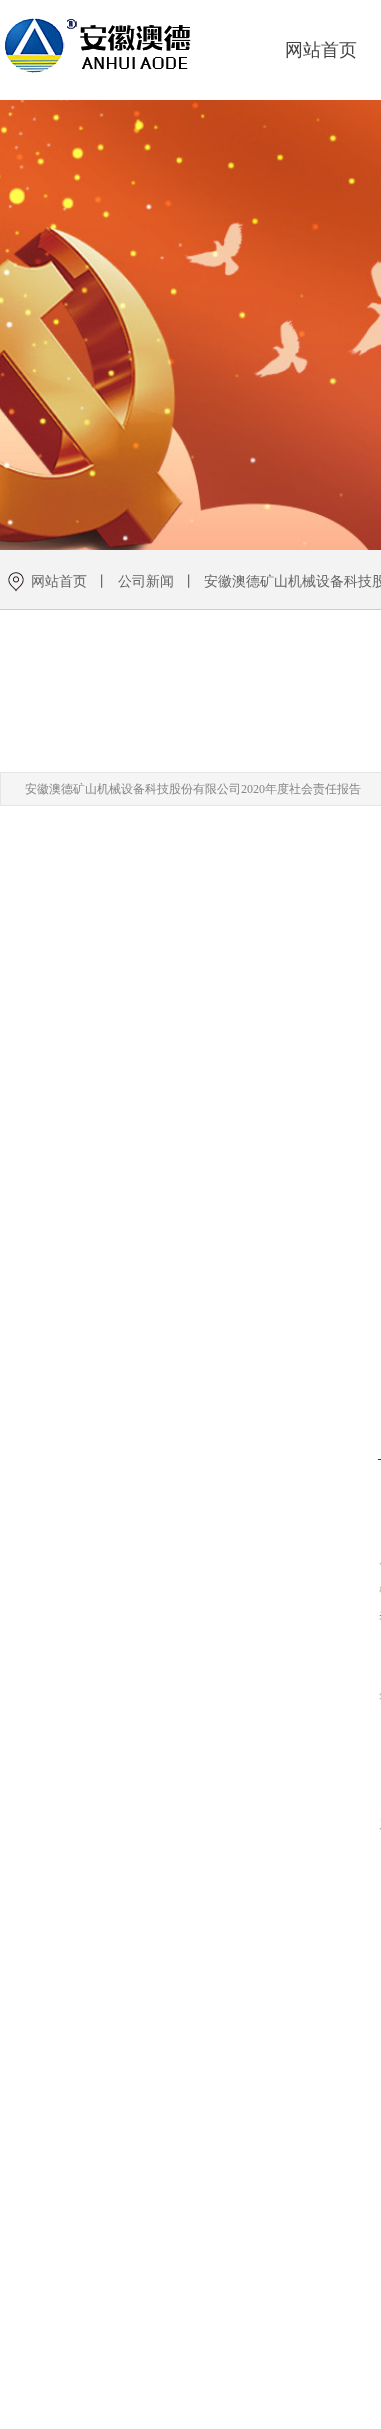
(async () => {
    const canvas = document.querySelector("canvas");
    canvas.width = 381;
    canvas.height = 2429;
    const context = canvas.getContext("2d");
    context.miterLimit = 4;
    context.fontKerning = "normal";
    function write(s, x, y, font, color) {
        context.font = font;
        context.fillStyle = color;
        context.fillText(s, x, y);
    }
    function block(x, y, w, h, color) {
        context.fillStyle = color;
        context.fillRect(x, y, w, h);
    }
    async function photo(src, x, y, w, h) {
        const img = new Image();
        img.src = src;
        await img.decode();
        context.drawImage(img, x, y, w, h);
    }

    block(0, 0, 381, 2429, "rgb(255, 255, 255)");
    await photo("media/1.png", 5, 18, 186, 55);
    write("网站首页", 285, 56, "500 18px WenQuanYi Zen Hei", "rgb(67, 67, 67)");
    await photo("media/2.png", 0, 100, 381, 450);
    block(0, 550, 381, 59, "rgb(243, 243, 243)");
    await photo("media/3.png", 8, 572, 16, 20);
    write("网站首页", 31, 586, "500 14px WenQuanYi Zen Hei", "rgb(102, 102, 102)");
    write("丨", 95, 586, "500 14px WenQuanYi Zen Hei", "rgb(90, 90, 90)");
    write("公司新闻", 118, 586, "500 14px WenQuanYi Zen Hei", "rgb(102, 102, 102)");
    write("丨", 182, 586, "500 14px WenQuanYi Zen Hei", "rgb(90, 90, 90)");
    write("安徽澳德矿山机械设备科技股", 204, 586, "500 14px WenQuanYi Zen Hei", "rgb(102, 102, 102)");
    block(0, 609, 381, 1, "rgb(204, 204, 204)");
    context.fillStyle = "rgb(245, 245, 245)";
    context.beginPath();
    context.rect(0.5, 772.5, 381, 33);
    context.fill();
    context.strokeStyle = "rgb(229, 229, 229)";
    context.stroke();
    write("安徽澳德矿山机械设备科技股份有限公司", 25, 793, "500 12px WenQuanYi Zen Hei", "rgb(134, 134, 134)");
    write("2020", 241, 793, "12px Liberation Serif", "rgb(134, 134, 134)");
    write("年度社会责任报告", 265, 793, "500 12px WenQuanYi Zen Hei", "rgb(134, 134, 134)");
    await photo("media/4.png", 377, 1459, 4, 371);
})();
